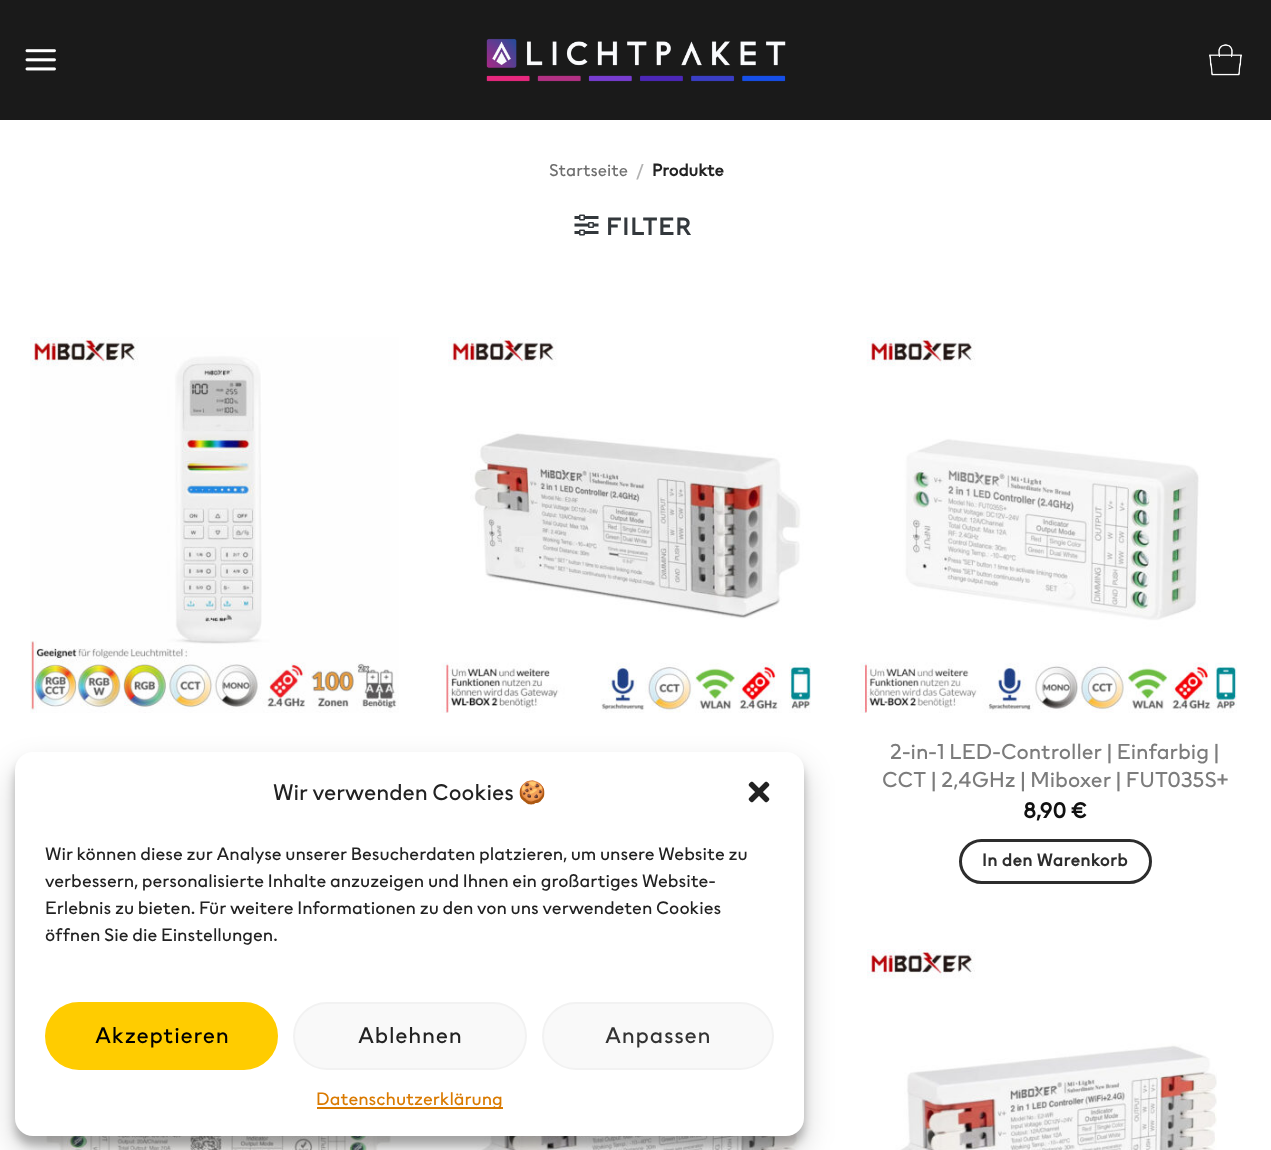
(async () => {
    const canvas = document.querySelector("canvas");
    canvas.width = 1271;
    canvas.height = 1150;
    const context = canvas.getContext("2d");
    context.miterLimit = 4;
    context.fontKerning = "normal";
    function write(s, x, y, font, color) {
        context.font = font;
        context.fillStyle = color;
        context.fillText(s, x, y);
    }
    function block(x, y, w, h, color) {
        context.fillStyle = color;
        context.fillRect(x, y, w, h);
    }
    function card(x, y, w, h, r, color) {
        context.fillStyle = color;
        context.beginPath();
        context.roundRect(x, y, w, h, r);
        context.fill();
    }
    async function photo(src, x, y, w, h) {
        const img = new Image();
        img.src = src;
        await img.decode();
        context.drawImage(img, x, y, w, h);
    }

    block(0, 0, 1271, 1150, "rgb(255, 255, 255)");
    block(0, 0, 1271, 120, "rgb(26, 26, 26)");
    await photo("media/1.png", 25, 49, 31, 22);
    await photo("media/2.png", 486, 38, 300, 44);
    await photo("media/3.png", 1209, 44, 33, 32);
    write("Startseite", 549, 176, "17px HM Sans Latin", "rgb(110, 110, 110)");
    write("/", 636, 176, "17px HM Sans Latin", "rgb(178, 178, 178)");
    write("Produkte", 652, 176, "bold 17px HM Sans Latin", "rgb(34, 34, 34)");
    await photo("media/4.png", 574, 214, 25, 22);
    context.letterSpacing = "1.25px";
    write("FILTER", 606, 235, "bold 24px HM Sans Latin", "rgb(51, 56, 60)");
    await photo("media/5.png", 30, 337, 369, 376);
    await photo("media/6.png", 441, 337, 370, 376);
    await photo("media/7.png", 860, 337, 377, 376);
    context.letterSpacing = "0px";
    write("2-in-1 LED-Controller | Einfarbig |", 890, 759, "21.6px HM Sans Latin", "rgb(124, 124, 124)");
    write("CCT | 2,4GHz | Miboxer | FUT035S+", 882, 787, "21.6px HM Sans Latin", "rgb(124, 124, 124)");
    write("8,90 €", 1023, 818, "bold 21.6px HM Sans Latin", "rgb(17, 17, 17)");
    context.beginPath();
    context.roundRect(960.5, 840.5, 190, 42, 21);
    context.strokeStyle = "rgb(45, 45, 45)";
    context.lineWidth = 3;
    context.stroke();
    context.letterSpacing = "0.5px";
    write("In den Warenkorb", 982, 866, "bold 17.25px HM Sans Latin", "rgb(45, 45, 45)");
    await photo("media/8.png", 30, 1135, 361, 15);
    await photo("media/9.png", 448, 1130, 351, 20);
    await photo("media/10.png", 867, 949, 350, 201);
    context.fillStyle = "rgba(0, 0, 0, 0.23)";
    context.filter = "blur(4.5px)";
    context.beginPath();
    context.roundRect(15, 761, 789, 384, 18);
    context.fill();
    context.filter = "none";
    context.fillStyle = "rgba(0, 0, 0, 0.19)";
    context.filter = "blur(15px)";
    context.beginPath();
    context.roundRect(15, 767, 789, 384, 18);
    context.fill();
    context.filter = "none";
    card(15, 752, 789, 384, 18, "rgb(255, 255, 255)");
    context.letterSpacing = "0px";
    write("Wir verwenden Cookies", 273, 800, "22.5px HM Sans Latin", "rgb(34, 34, 34)");
    write("🍪", 518, 800, "22.5px Noto Color Emoji", "rgb(34, 34, 34)");
    await photo("media/11.png", 748, 781, 22, 22);
    write("Wir können diese zur Analyse unserer Besucherdaten platzieren, um unsere Website zu", 45, 860, "18px HM Sans Latin", "rgb(34, 34, 34)");
    write("verbessern, personalisierte Inhalte anzuzeigen und Ihnen ein großartiges Website-", 45, 887, "18px HM Sans Latin", "rgb(34, 34, 34)");
    write("Erlebnis zu bieten. Für weitere Informationen zu den von uns verwendeten Cookies", 45, 914, "18px HM Sans Latin", "rgb(34, 34, 34)");
    write("öffnen Sie die Einstellungen.", 45, 941, "18px HM Sans Latin", "rgb(34, 34, 34)");
    context.fillStyle = "rgb(255, 204, 0)";
    context.beginPath();
    context.roundRect(46, 1003, 231, 66, 33);
    context.fill();
    context.strokeStyle = "rgb(255, 204, 0)";
    context.lineWidth = 2;
    context.stroke();
    context.letterSpacing = "0.75px";
    write("Akzeptieren", 95, 1043, "22.5px HM Sans Latin", "rgb(0, 0, 0)");
    context.fillStyle = "rgb(249, 249, 249)";
    context.beginPath();
    context.roundRect(294, 1003, 232, 66, 33);
    context.fill();
    context.strokeStyle = "rgb(242, 242, 242)";
    context.stroke();
    write("Ablehnen", 358, 1043, "22.5px HM Sans Latin", "rgb(34, 34, 34)");
    context.fillStyle = "rgb(249, 249, 249)";
    context.beginPath();
    context.roundRect(543, 1003, 230, 66, 33);
    context.fill();
    context.stroke();
    write("Anpassen", 605, 1043, "22.5px HM Sans Latin", "rgb(51, 51, 51)");
    block(317, 1107, 186, 2, "rgb(218, 122, 0)");
    context.letterSpacing = "0px";
    write("Datenschutzerklärung", 316, 1105, "18px HM Sans Latin", "rgb(218, 122, 0)");
})();
